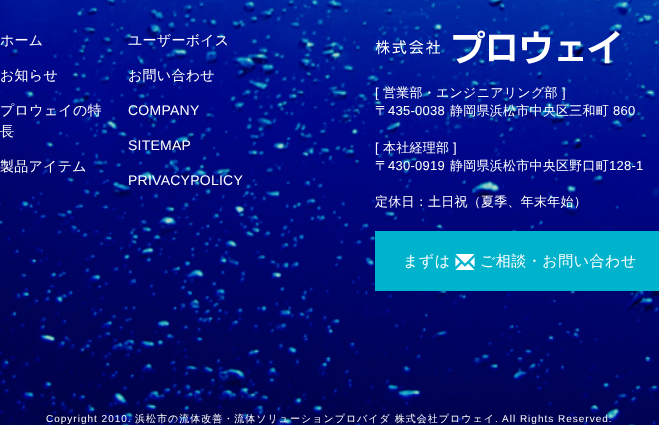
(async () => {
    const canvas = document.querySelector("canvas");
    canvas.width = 659;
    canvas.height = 425;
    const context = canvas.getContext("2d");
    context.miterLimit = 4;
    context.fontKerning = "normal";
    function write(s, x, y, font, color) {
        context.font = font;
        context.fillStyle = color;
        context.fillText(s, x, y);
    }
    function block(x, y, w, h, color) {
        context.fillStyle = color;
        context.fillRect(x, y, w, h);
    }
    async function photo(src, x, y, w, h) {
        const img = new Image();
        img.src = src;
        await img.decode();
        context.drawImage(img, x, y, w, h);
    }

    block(0, 0, 659, 425, "rgb(255, 255, 255)");
    await photo("media/1.png", 0, 0, 659, 425);
    context.letterSpacing = "0.25px";
    write("ホーム", 0, 45, "500 14px WenQuanYi Zen Hei", "rgb(255, 255, 255)");
    write("ユーザーボイス", 128, 45, "500 14px WenQuanYi Zen Hei", "rgb(255, 255, 255)");
    write("お知らせ", 0, 80, "500 14px WenQuanYi Zen Hei", "rgb(255, 255, 255)");
    write("お問い合わせ", 128, 80, "500 14px WenQuanYi Zen Hei", "rgb(255, 255, 255)");
    write("プロウェイの特", 0, 115, "500 14px WenQuanYi Zen Hei", "rgb(255, 255, 255)");
    write("長", 0, 136, "500 14px WenQuanYi Zen Hei", "rgb(255, 255, 255)");
    write("COMPANY", 128, 115, "14px Liberation Sans", "rgb(255, 255, 255)");
    write("SITEMAP", 128, 150, "14px Liberation Sans", "rgb(255, 255, 255)");
    write("製品アイテム", 0, 171, "500 14px WenQuanYi Zen Hei", "rgb(255, 255, 255)");
    write("PRIVACYPOLICY", 128, 185, "14px Liberation Sans", "rgb(255, 255, 255)");
    await photo("media/2.png", 375, 30, 245, 34);
    write("[", 375, 97, "13px Liberation Sans", "rgb(255, 255, 255)");
    write("営業部・エンジニアリング部", 383, 97, "500 13px WenQuanYi Zen Hei", "rgb(255, 255, 255)");
    write("]", 562, 97, "13px Liberation Sans", "rgb(255, 255, 255)");
    write("〒", 375, 115, "500 13px WenQuanYi Zen Hei", "rgb(255, 255, 255)");
    write("435-0038", 388, 115, "13px Liberation Sans", "rgb(255, 255, 255)");
    write("静岡県浜松市中央区三和町", 450, 115, "500 13px WenQuanYi Zen Hei", "rgb(255, 255, 255)");
    write("860", 613, 115, "13px Liberation Sans", "rgb(255, 255, 255)");
    write("[", 375, 152, "13px Liberation Sans", "rgb(255, 255, 255)");
    write("本社経理部", 383, 152, "500 13px WenQuanYi Zen Hei", "rgb(255, 255, 255)");
    write("]", 453, 152, "13px Liberation Sans", "rgb(255, 255, 255)");
    write("〒", 375, 170, "500 13px WenQuanYi Zen Hei", "rgb(255, 255, 255)");
    write("430-0919", 388, 170, "13px Liberation Sans", "rgb(255, 255, 255)");
    write("静岡県浜松市中央区野口町", 450, 170, "500 13px WenQuanYi Zen Hei", "rgb(255, 255, 255)");
    write("128-1", 609, 170, "13px Liberation Sans", "rgb(255, 255, 255)");
    write("定休日：土日祝（夏季、年末年始）", 375, 206, "500 13px WenQuanYi Zen Hei", "rgb(255, 255, 255)");
    block(375, 231, 284, 60, "rgb(0, 179, 205)");
    context.letterSpacing = "0.5px";
    write("まずは", 403, 266, "500 15px WenQuanYi Zen Hei", "rgb(255, 255, 255)");
    await photo("media/3.png", 455, 254, 20, 16);
    write("ご相談・お問い合わせ", 480, 266, "500 15px WenQuanYi Zen Hei", "rgb(255, 255, 255)");
    context.letterSpacing = "1px";
    write("Copyright 2010.", 46, 422, "10px Liberation Sans", "rgb(255, 255, 255)");
    write("浜松市の流体改善・流体ソリューションプロバイダ 株式会社プロウェイ", 135, 422, "500 10px WenQuanYi Zen Hei", "rgb(255, 255, 255)");
    write(". All Rights Reserved.", 495, 422, "10px Liberation Sans", "rgb(255, 255, 255)");
})();
